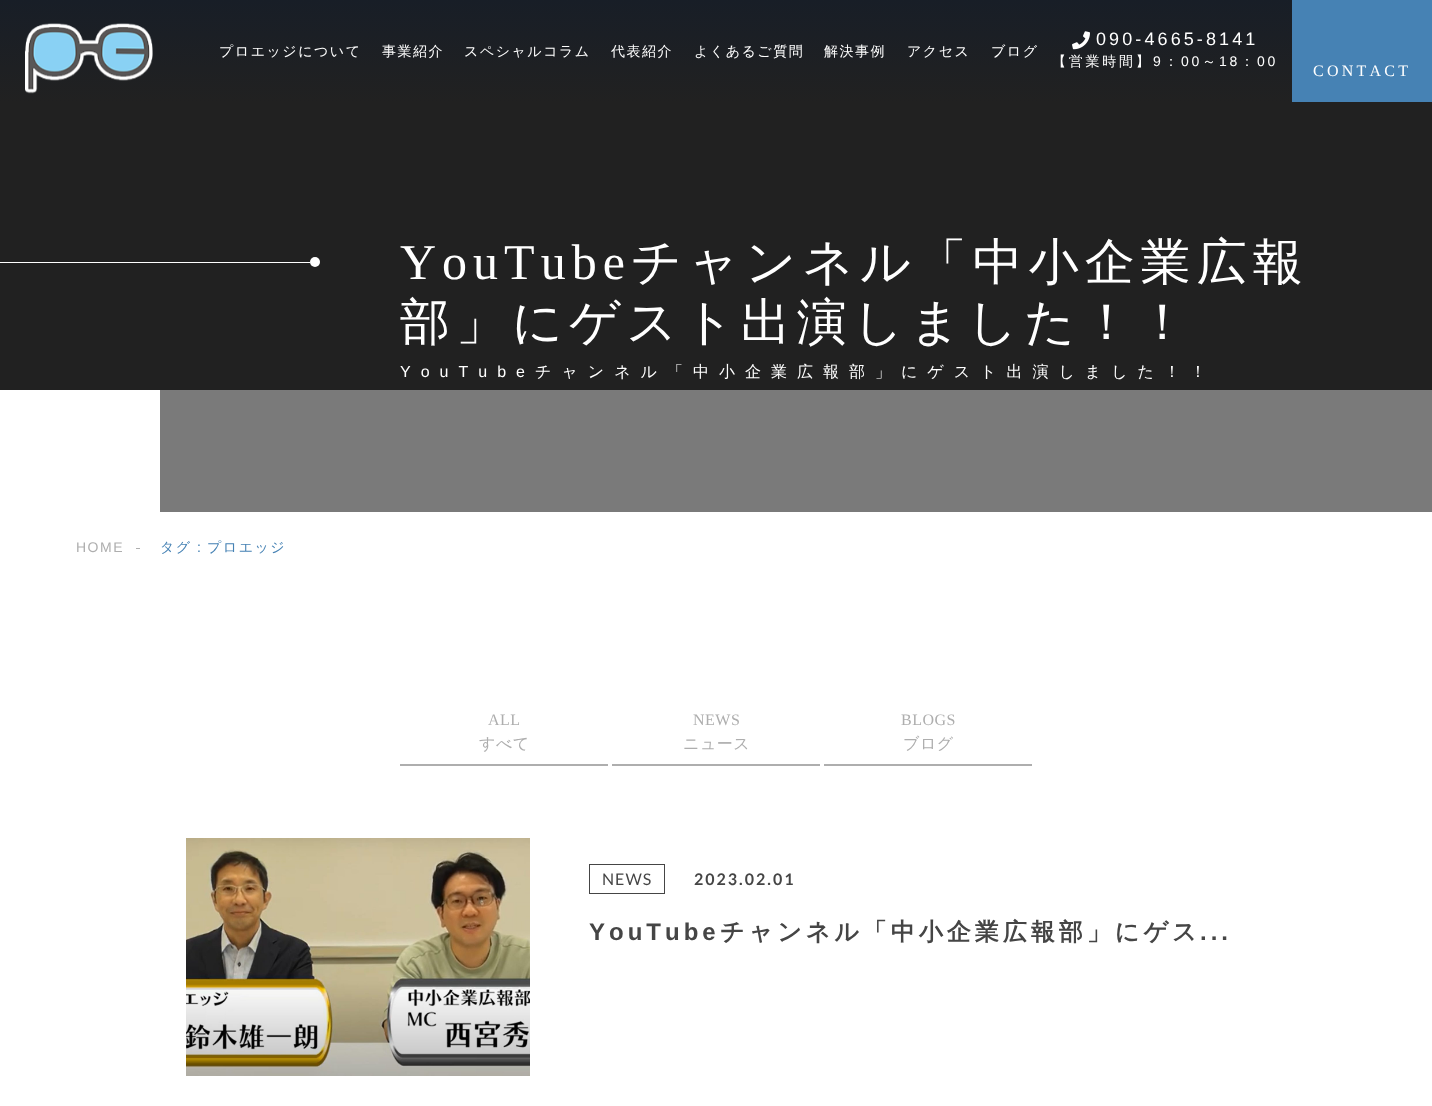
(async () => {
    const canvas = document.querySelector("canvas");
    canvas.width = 1432;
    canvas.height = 1106;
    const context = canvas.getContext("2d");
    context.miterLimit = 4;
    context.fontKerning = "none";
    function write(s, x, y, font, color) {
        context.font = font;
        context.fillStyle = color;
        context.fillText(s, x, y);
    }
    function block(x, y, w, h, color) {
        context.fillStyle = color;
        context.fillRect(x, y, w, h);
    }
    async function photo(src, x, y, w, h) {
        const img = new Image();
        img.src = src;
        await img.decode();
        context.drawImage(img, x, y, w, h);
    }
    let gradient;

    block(0, 0, 1432, 1106, "rgb(255, 255, 255)");
    block(160, 390, 1272, 122, "rgb(122, 122, 122)");
    gradient = context.createLinearGradient(716, 0, 716, 102);
    gradient.addColorStop(0, "rgb(24, 30, 39)");
    gradient.addColorStop(1, "rgb(33, 33, 33)");
    context.fillStyle = gradient;
    context.fillRect(0, 0, 1292, 102);
    await photo("media/1.png", 25, 23, 128, 71);
    context.letterSpacing = "1.5px";
    write("プロエッジについて", 219, 56, "500 14px WenQuanYi Zen Hei", "rgb(255, 255, 255)");
    write("事業紹介", 382, 56, "500 14px WenQuanYi Zen Hei", "rgb(255, 255, 255)");
    write("スペシャルコラム", 464, 56, "500 14px WenQuanYi Zen Hei", "rgb(255, 255, 255)");
    write("代表紹介", 611, 56, "500 14px WenQuanYi Zen Hei", "rgb(255, 255, 255)");
    write("よくあるご質問", 694, 56, "500 14px WenQuanYi Zen Hei", "rgb(255, 255, 255)");
    write("解決事例", 824, 56, "500 14px WenQuanYi Zen Hei", "rgb(255, 255, 255)");
    write("アクセス", 907, 56, "500 14px WenQuanYi Zen Hei", "rgb(255, 255, 255)");
    write("ブログ", 991, 56, "500 14px WenQuanYi Zen Hei", "rgb(255, 255, 255)");
    await photo("media/2.png", 1072, 31, 18, 19);
    context.letterSpacing = "3.1px";
    write("090-4665-8141", 1096, 45, "18px Liberation Sans", "rgb(255, 255, 255)");
    context.letterSpacing = "2.75px";
    write("【営業時間】", 1052, 66, "500 14px WenQuanYi Zen Hei", "rgb(255, 255, 255)");
    write("9", 1153, 66, "14px Liberation Sans", "rgb(255, 255, 255)");
    write("：", 1164, 66, "500 14px WenQuanYi Zen Hei", "rgb(255, 255, 255)");
    write("00", 1181, 66, "14px Liberation Sans", "rgb(255, 255, 255)");
    write("～", 1202, 66, "500 14px WenQuanYi Zen Hei", "rgb(255, 255, 255)");
    write("18", 1219, 66, "14px Liberation Sans", "rgb(255, 255, 255)");
    write("：", 1240, 66, "500 14px WenQuanYi Zen Hei", "rgb(255, 255, 255)");
    write("00", 1257, 66, "14px Liberation Sans", "rgb(255, 255, 255)");
    block(1292, 0, 140, 102, "rgb(70, 130, 180)");
    context.letterSpacing = "3.25px";
    write("CONTACT", 1313, 76, "16px Liberation Serif", "rgb(255, 255, 255)");
    block(0, 102, 1432, 288, "rgb(33, 33, 33)");
    block(0, 262, 310, 1, "rgb(255, 255, 255)");
    context.beginPath();
    context.arc(315, 262, 5, 0, Math.PI * 2);
    context.fill();
    context.letterSpacing = "6px";
    write("YouTube", 400, 279, "50px Liberation Serif", "rgb(255, 255, 255)");
    write("チャンネル「中小企業広報", 631, 279, "500 50px WenQuanYi Zen Hei", "rgb(255, 255, 255)");
    write("部」にゲスト出演しました！！", 400, 339, "500 50px WenQuanYi Zen Hei", "rgb(255, 255, 255)");
    context.letterSpacing = "10px";
    write("YouTube", 400, 377, "16px Liberation Sans", "rgb(255, 255, 255)");
    write("チャンネル「中小企業広報部」にゲスト出演しました！！", 535, 377, "500 16px WenQuanYi Zen Hei", "rgb(255, 255, 255)");
    context.letterSpacing = "1.5px";
    write("HOME", 76, 552, "14px Liberation Sans", "rgb(174, 174, 174)");
    block(136, 548, 4, 1, "rgb(174, 174, 174)");
    write("タグ", 160, 552, "500 14px WenQuanYi Zen Hei", "rgb(70, 130, 180)");
    write(":", 197, 552, "14px Liberation Sans", "rgb(70, 130, 180)");
    write("プロエッジ", 207, 552, "500 14px WenQuanYi Zen Hei", "rgb(70, 130, 180)");
    block(400, 764, 208, 2, "rgb(174, 174, 174)");
    context.letterSpacing = "0.5px";
    write("ALL", 488, 725, "16px Liberation Serif", "rgb(174, 174, 174)");
    write("すべて", 479, 749, "500 16px WenQuanYi Zen Hei", "rgb(174, 174, 174)");
    block(612, 764, 208, 2, "rgb(174, 174, 174)");
    write("NEWS", 693, 725, "16px Liberation Serif", "rgb(174, 174, 174)");
    write("ニュース", 683, 749, "500 16px WenQuanYi Zen Hei", "rgb(174, 174, 174)");
    block(824, 764, 208, 2, "rgb(174, 174, 174)");
    write("BLOGS", 901, 725, "16px Liberation Serif", "rgb(174, 174, 174)");
    write("ブログ", 903, 749, "500 16px WenQuanYi Zen Hei", "rgb(174, 174, 174)");
    await photo("media/3.png", 186, 838, 344, 238);
    context.strokeStyle = "rgb(69, 69, 69)";
    context.strokeRect(589.5, 864.5, 75, 29);
    context.letterSpacing = "1px";
    write("NEWS", 602, 885, "16px Lato", "rgb(69, 69, 69)");
    context.letterSpacing = "2px";
    write("2023.02.01", 694, 885, "bold 16px Lato", "rgb(69, 69, 69)");
    context.letterSpacing = "4px";
    write("YouTube", 589, 940, "bold 24px Liberation Sans", "rgb(69, 69, 69)");
    write("チャンネル「中小企業広報部」にゲス", 720, 940, "bold 24px WenQuanYi Zen Hei", "rgb(69, 69, 69)");
    write("...", 1200, 940, "bold 24px Liberation Sans", "rgb(69, 69, 69)");
})();
